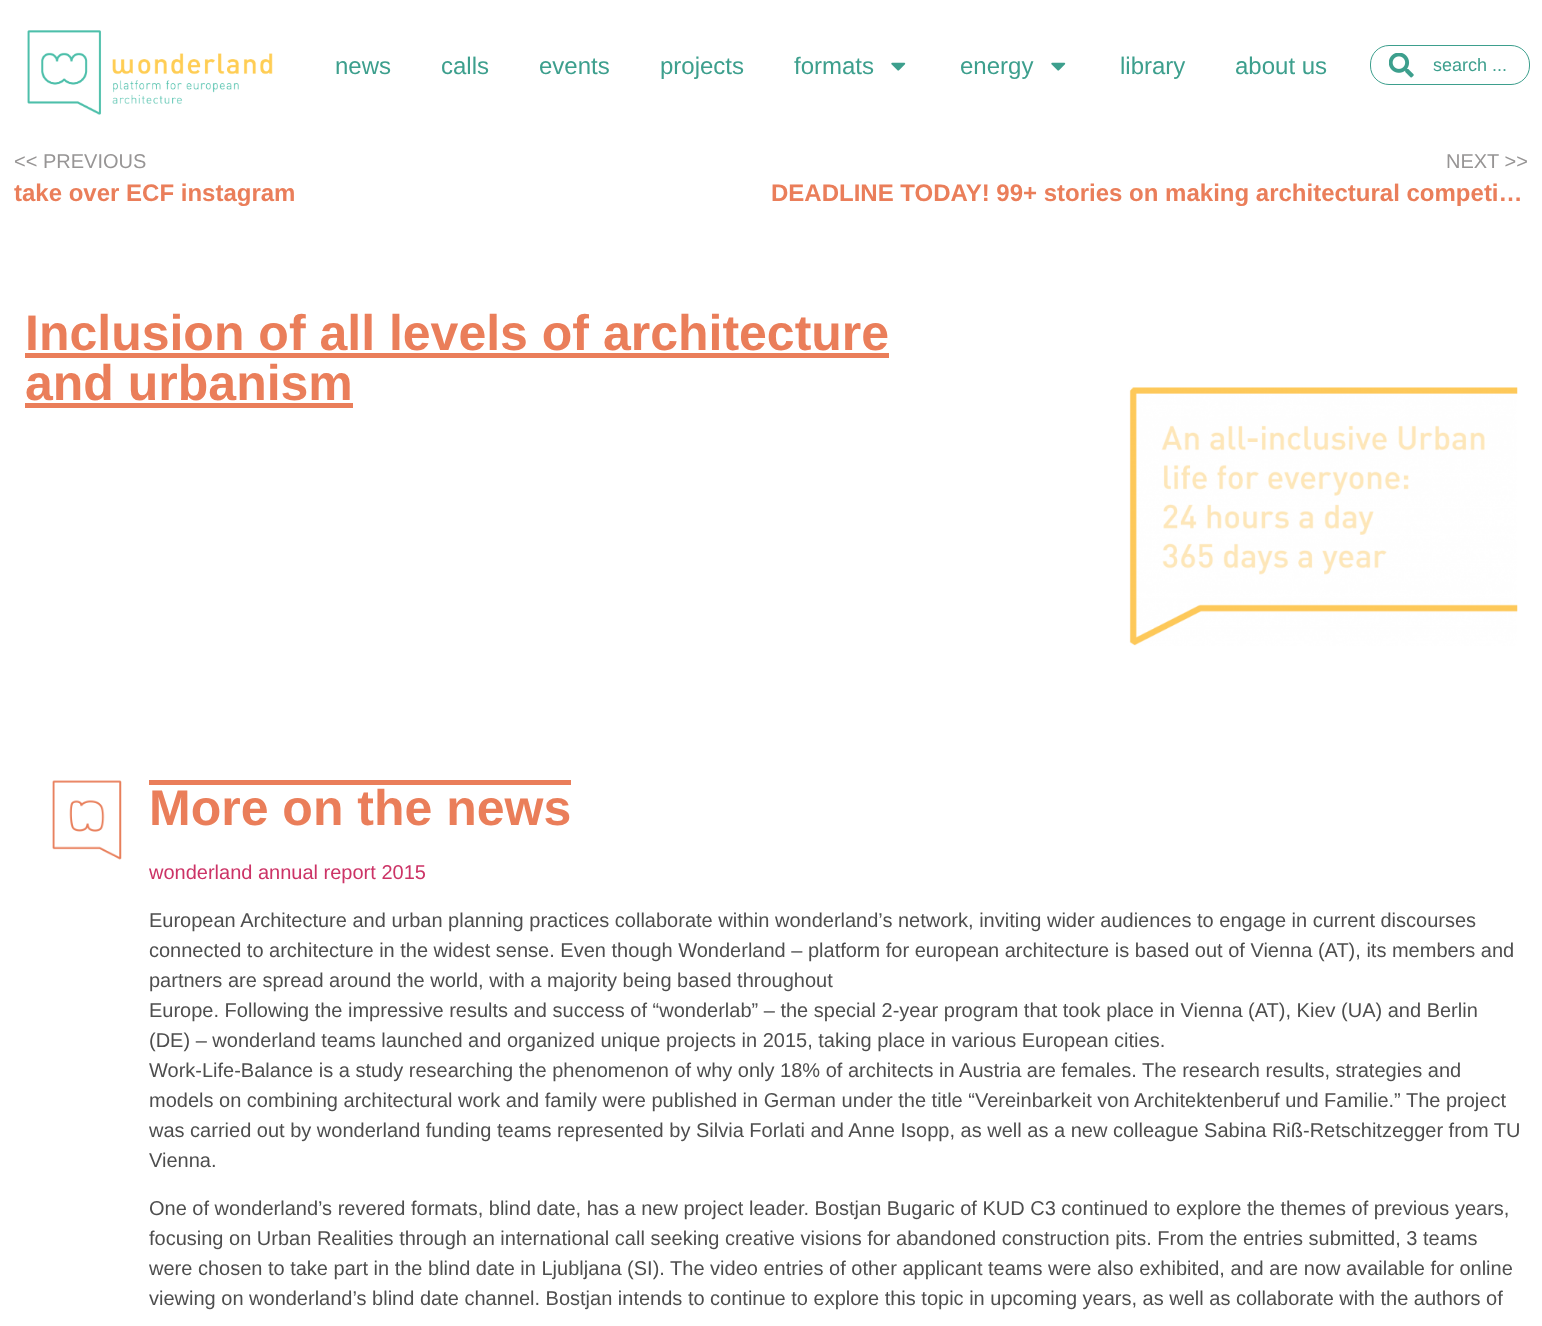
<?xml version="1.0" encoding="UTF-8"?>
<svg xmlns="http://www.w3.org/2000/svg" width="1542" height="1326">
    <rect width="100%" height="100%" fill="#FFFFFF"/>
    <image x="27" y="30" width="246" height="85" href="img_01.png"/>
    <text x="335" y="74" font-family="Liberation Sans" font-size="24" fill="#3D9F8D">news</text>
    <text x="441" y="74" font-family="Liberation Sans" font-size="24" fill="#3D9F8D">calls</text>
    <text x="539" y="74" font-family="Liberation Sans" font-size="24" fill="#3D9F8D">events</text>
    <text x="660" y="74" font-family="Liberation Sans" font-size="24" fill="#3D9F8D">projects</text>
    <text x="794" y="74" font-family="Liberation Sans" font-size="24" fill="#3D9F8D">formats</text>
    <image x="891" y="62" width="15" height="9" href="img_02.png"/>
    <text x="960" y="74" font-family="Liberation Sans" font-size="24" fill="#3D9F8D">energy</text>
    <image x="1051" y="62" width="15" height="9" href="img_02.png"/>
    <text x="1120" y="74" font-family="Liberation Sans" font-size="24" fill="#3D9F8D">library</text>
    <text x="1235" y="74" font-family="Liberation Sans" font-size="24" fill="#3D9F8D">about us</text>
    <rect x="1370.5" y="45.5" width="159" height="39" rx="18.5" fill="none" stroke="#3D9F8D"/>
    <image x="1389" y="53" width="25" height="25" href="img_03.png"/>
    <text x="1433" y="71" font-family="Liberation Sans" font-size="18" fill="#3D9F8D">search ...</text>
    <text x="14" y="168" font-family="Liberation Sans" font-size="20" fill="#979595">&lt;&lt; PREVIOUS</text>
    <text x="14" y="201" font-family="Liberation Sans" font-size="24" font-weight="700" fill="#EA7E5A">take over ECF instagram</text>
    <text x="1446" y="168" font-family="Liberation Sans" font-size="20" fill="#979595">NEXT &gt;&gt;</text>
    <text x="771" y="201" font-family="Liberation Sans" font-size="24" font-weight="700" fill="#EA7E5A">DEADLINE TODAY! 99+ stories on making architectural competi…</text>
    <text x="25" y="350" font-family="Liberation Sans" font-size="50" font-weight="700" fill="#EA7E5A">Inclusion of all levels of architecture</text>
    <rect x="25" y="353" width="864" height="5" fill="#EA7E5A"/>
    <text x="25" y="400" font-family="Liberation Sans" font-size="50" font-weight="700" fill="#EA7E5A">and urbanism</text>
    <rect x="25" y="403" width="328" height="5" fill="#EA7E5A"/>
    <image x="1129" y="387" width="389" height="259" href="img_04.png"/>
    <image x="52" y="780" width="70" height="80" href="img_05.png"/>
    <text x="149" y="825" font-family="Liberation Sans" font-size="50" font-weight="700" fill="#EA7E5A">More on the news</text>
    <rect x="149" y="780" width="422" height="5" fill="#EA7E5A"/>
    <text x="149" y="879" font-family="Liberation Sans" font-size="20" fill="#CC3366">wonderland annual report 2015</text>
    <text font-family="Liberation Sans" font-size="20" fill="#4E4E4E">
        <tspan x="149" y="927">European Architecture and urban planning practices collaborate within wonderland’s network, inviting wider audiences to engage in current discourses</tspan>
        <tspan x="149" y="957">connected to architecture in the widest sense. Even though Wonderland – platform for european architecture is based out of Vienna (AT), its members and</tspan>
        <tspan x="149" y="987">partners are spread around the world, with a majority being based throughout</tspan>
        <tspan x="149" y="1017">Europe. Following the impressive results and success of “wonderlab” – the special 2-year program that took place in Vienna (AT), Kiev (UA) and Berlin</tspan>
        <tspan x="149" y="1047">(DE) – wonderland teams launched and organized unique projects in 2015, taking place in various European cities.</tspan>
        <tspan x="149" y="1077">Work-Life-Balance is a study researching the phenomenon of why only 18% of architects in Austria are females. The research results, strategies and</tspan>
        <tspan x="149" y="1107">models on combining architectural work and family were published in German under the title “Vereinbarkeit von Architektenberuf und Familie.” The project</tspan>
        <tspan x="149" y="1137">was carried out by wonderland funding teams represented by Silvia Forlati and Anne Isopp, as well as a new colleague Sabina Riß-Retschitzegger from TU</tspan>
        <tspan x="149" y="1167">Vienna.</tspan>
    </text>
    <text font-family="Liberation Sans" font-size="20" fill="#4E4E4E">
        <tspan x="149" y="1215">One of wonderland’s revered formats, blind date, has a new project leader. Bostjan Bugaric of KUD C3 continued to explore the themes of previous years,</tspan>
        <tspan x="149" y="1245">focusing on Urban Realities through an international call seeking creative visions for abandoned construction pits. From the entries submitted, 3 teams</tspan>
        <tspan x="149" y="1275">were chosen to take part in the blind date in Ljubljana (SI). The video entries of other applicant teams were also exhibited, and are now available for online</tspan>
        <tspan x="149" y="1305">viewing on wonderland’s blind date channel. Bostjan intends to continue to explore this topic in upcoming years, as well as collaborate with the authors of</tspan>
    </text>
</svg>
